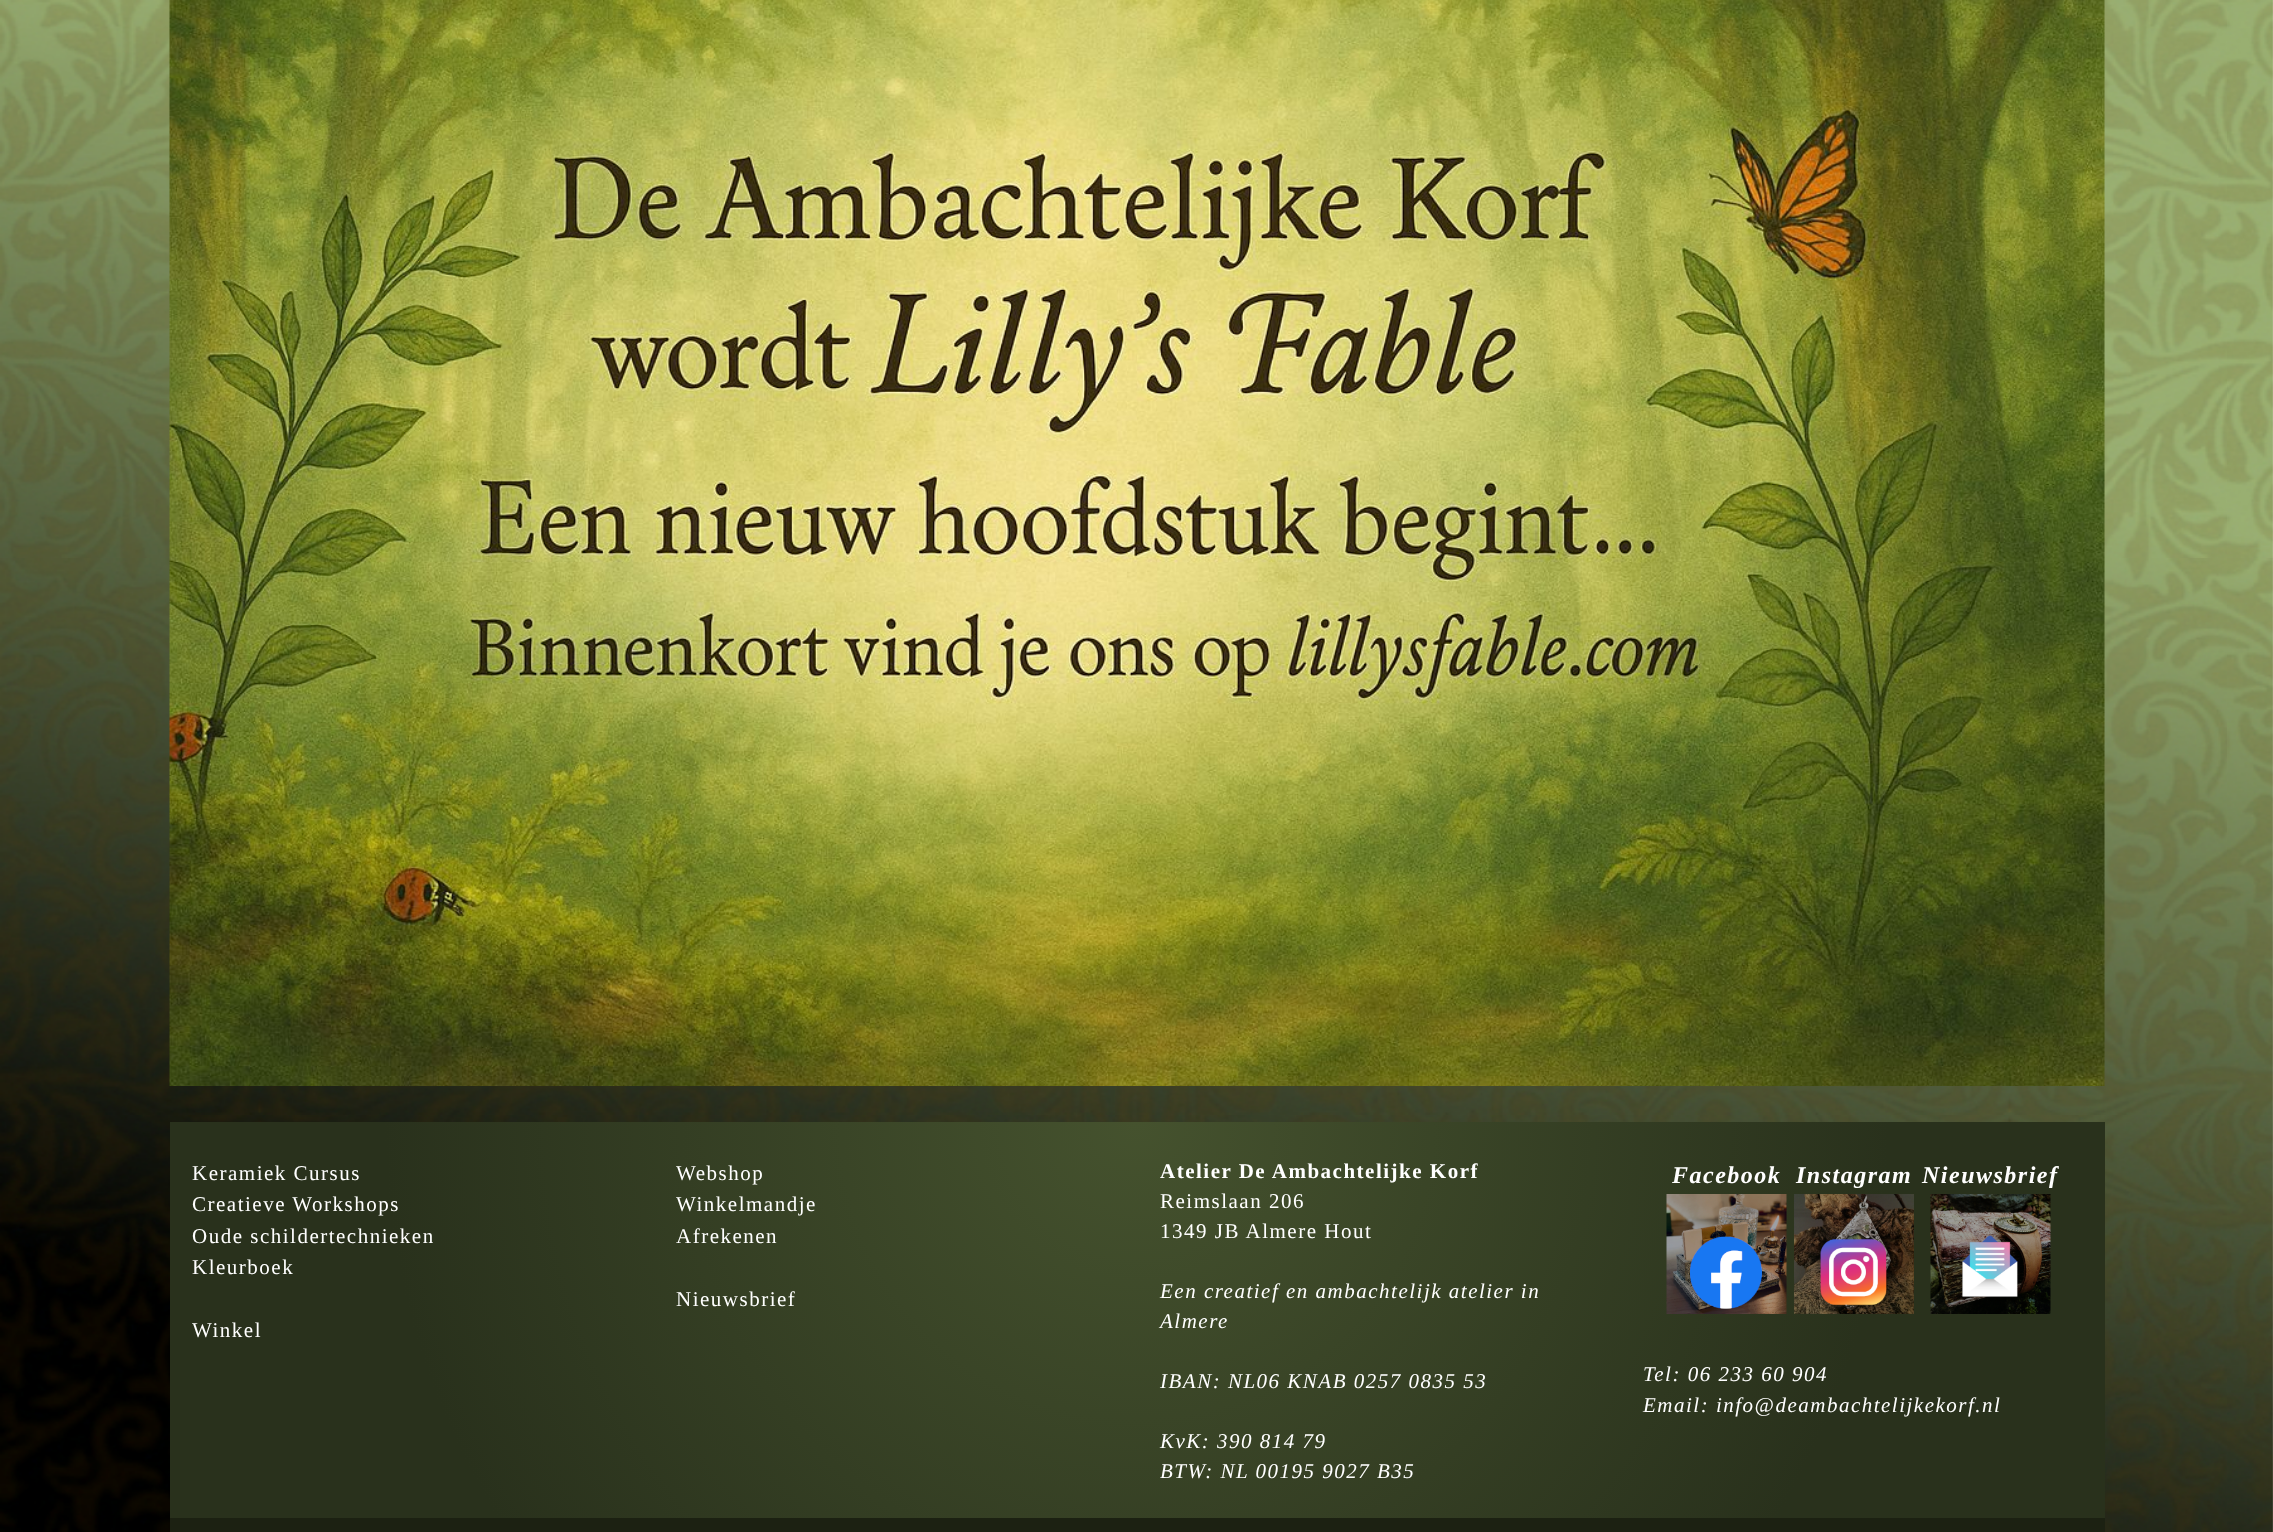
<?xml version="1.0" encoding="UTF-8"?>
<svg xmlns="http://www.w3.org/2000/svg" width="2273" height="1532">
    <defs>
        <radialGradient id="g1" gradientUnits="userSpaceOnUse" cx="1137" cy="1122" r="1045"><stop offset="0" stop-color="#45522E"/><stop offset="0.72" stop-color="#29311C"/></radialGradient>
    </defs>
    <rect width="100%" height="100%" fill="#FFFFFF"/>
    <image x="0" y="0" width="2273" height="1532" href="img_01.png"/>
    <image x="169" y="0" width="1936" height="1086" href="img_02.png"/>
    <rect x="170" y="1122" width="1935" height="396" fill="url(#g1)"/>
    <text font-family="Liberation Serif" font-size="21" letter-spacing="1.5" fill="#FFFFFF">
        <tspan x="192" y="1180">Keramiek Cursus</tspan>
        <tspan x="192" y="1211">Creatieve Workshops</tspan>
        <tspan x="192" y="1243">Oude schildertechnieken</tspan>
        <tspan x="192" y="1274">Kleurboek</tspan>
    </text>
    <text x="192" y="1337" font-family="Liberation Serif" font-size="21" letter-spacing="1.5" fill="#FFFFFF">Winkel</text>
    <text font-family="Liberation Serif" font-size="21" letter-spacing="1.5" fill="#FFFFFF">
        <tspan x="676" y="1180">Webshop</tspan>
        <tspan x="676" y="1211">Winkelmandje</tspan>
        <tspan x="676" y="1243">Afrekenen</tspan>
    </text>
    <text x="676" y="1306" font-family="Liberation Serif" font-size="21" letter-spacing="1.5" fill="#FFFFFF">Nieuwsbrief</text>
    <text x="1160" y="1178" font-family="Liberation Serif" font-size="21" font-weight="700" letter-spacing="1.5" fill="#FFFFFF">Atelier De Ambachtelijke Korf</text>
    <text font-family="Liberation Serif" font-size="21" letter-spacing="1.5" fill="#FFFFFF">
        <tspan x="1160" y="1208">Reimslaan 206</tspan>
        <tspan x="1160" y="1238">1349 JB Almere Hout</tspan>
    </text>
    <text font-family="Liberation Serif" font-size="21" font-style="italic" letter-spacing="1.5" fill="#FFFFFF">
        <tspan x="1160" y="1298">Een creatief en ambachtelijk atelier in</tspan>
        <tspan x="1160" y="1328">Almere</tspan>
    </text>
    <text x="1160" y="1388" font-family="Liberation Serif" font-size="21" font-style="italic" letter-spacing="1.5" fill="#FFFFFF">IBAN: NL06 KNAB 0257 0835 53</text>
    <text font-family="Liberation Serif" font-size="21" font-style="italic" letter-spacing="1.5" fill="#FFFFFF">
        <tspan x="1160" y="1448">KvK: 390 814 79</tspan>
        <tspan x="1160" y="1478">BTW: NL 00195 9027 B35</tspan>
    </text>
    <text x="1672" y="1183" font-family="Liberation Serif" font-size="24" font-weight="700" font-style="italic" letter-spacing="1.5" fill="#FFFFFF">Facebook</text>
    <image x="1666" y="1194" width="121" height="120" href="img_03.png"/>
    <text x="1796" y="1183" font-family="Liberation Serif" font-size="24" font-weight="700" font-style="italic" letter-spacing="1.5" fill="#FFFFFF">Instagram</text>
    <image x="1794" y="1194" width="120" height="120" href="img_04.png"/>
    <text x="1922" y="1183" font-family="Liberation Serif" font-size="24" font-weight="700" font-style="italic" letter-spacing="1.5" fill="#FFFFFF">Nieuwsbrief</text>
    <image x="1930" y="1194" width="121" height="120" href="img_05.png"/>
    <text font-family="Liberation Serif" font-size="21" font-style="italic" letter-spacing="1.5" fill="#FFFFFF">
        <tspan x="1643" y="1381">Tel: 06 233 60 904</tspan>
        <tspan x="1643" y="1412">Email: info@deambachtelijkekorf.nl</tspan>
    </text>
    <rect x="170" y="1518" width="1935" height="14" fill="#1C2112"/>
</svg>
